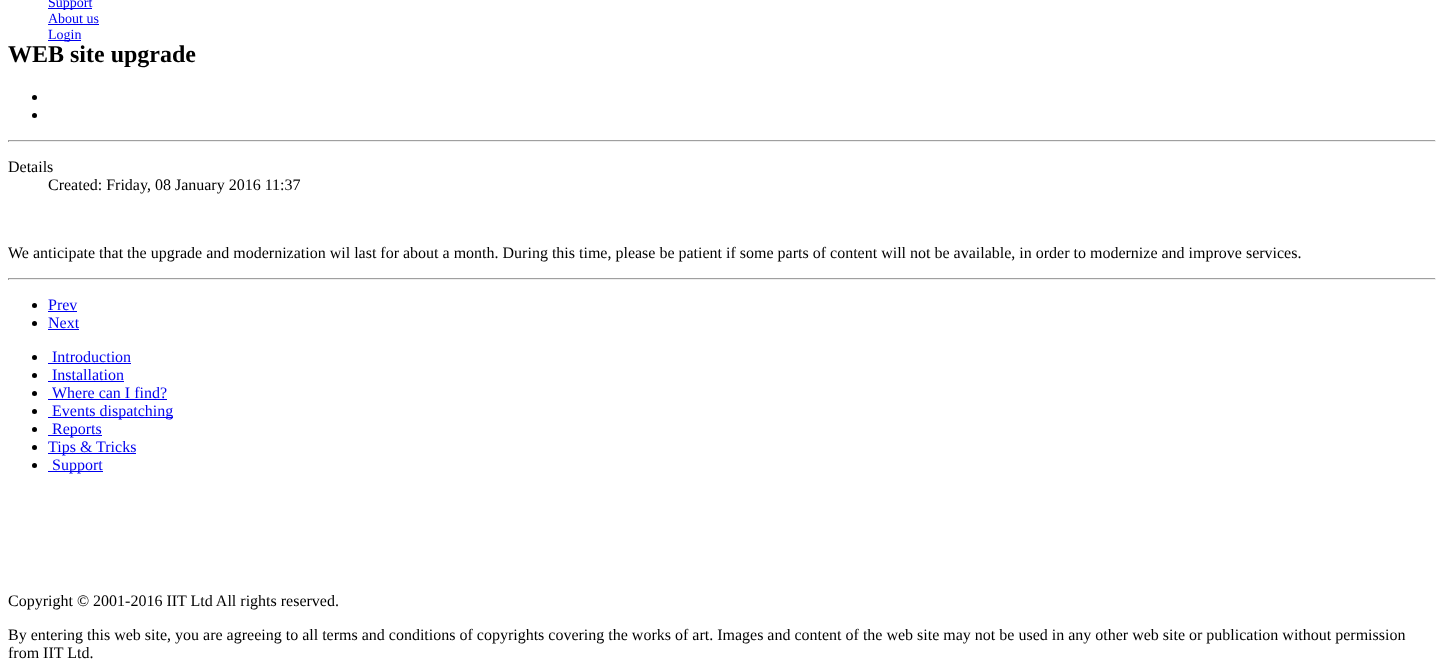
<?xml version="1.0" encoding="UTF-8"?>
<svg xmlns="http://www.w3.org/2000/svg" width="1444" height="659">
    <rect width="100%" height="100%" fill="#FFFFFF"/>
    <rect x="48" y="8" width="44" height="1" fill="#0000EE"/>
    <text font-family="Liberation Serif" font-size="14" fill="#0000EE">
        <tspan x="48" y="7">Support</tspan>
        <tspan x="48" y="23">About us</tspan>
    </text>
    <rect x="48" y="24" width="51" height="1" fill="#0000EE"/>
    <rect x="48" y="40" width="33" height="1" fill="#0000EE"/>
    <text x="48" y="39" font-family="Liberation Serif" font-size="14" fill="#0000EE">Login</text>
    <text x="8" y="62" font-family="Liberation Serif" font-size="24" font-weight="700" fill="#000000">WEB site upgrade</text>
    <circle cx="34.5" cy="97.5" r="2.5" fill="#000000"/>
    <circle cx="34.5" cy="115.5" r="2.5" fill="#000000"/>
    <rect x="8" y="140" width="1428" height="1" fill="#9F9F9F"/>
    <rect x="1435" y="140" width="1" height="2" fill="#EEEEEE"/>
    <rect x="8" y="141" width="1428" height="1" fill="#EEEEEE"/>
    <rect x="8" y="140" width="1" height="2" fill="#9F9F9F"/>
    <text x="8" y="172" font-family="Liberation Serif" font-size="16" fill="#000000">Details</text>
    <text x="48" y="190" font-family="Liberation Serif" font-size="16" fill="#000000">Created: Friday, 08 January 2016 11:37</text>
    <text x="8" y="258" font-family="Liberation Serif" font-size="16" fill="#000000">We anticipate that the upgrade and modernization wil last for about a month. During this time, please be patient if some parts of content will not be available, in order to modernize and improve services.</text>
    <rect x="8" y="278" width="1428" height="1" fill="#9F9F9F"/>
    <rect x="1435" y="278" width="1" height="2" fill="#EEEEEE"/>
    <rect x="8" y="279" width="1428" height="1" fill="#EEEEEE"/>
    <rect x="8" y="278" width="1" height="2" fill="#9F9F9F"/>
    <circle cx="34.5" cy="305.5" r="2.5" fill="#000000"/>
    <text x="48" y="310" font-family="Liberation Serif" font-size="16" fill="#0000EE">Prev</text>
    <rect x="48" y="311" width="29" height="1" fill="#0000EE"/>
    <circle cx="34.5" cy="323.5" r="2.5" fill="#000000"/>
    <text x="48" y="328" font-family="Liberation Serif" font-size="16" fill="#0000EE">Next</text>
    <rect x="48" y="329" width="31" height="1" fill="#0000EE"/>
    <circle cx="34.5" cy="357.5" r="2.5" fill="#000000"/>
    <text x="52" y="362" font-family="Liberation Serif" font-size="16" fill="#0000EE">Introduction</text>
    <rect x="48" y="363" width="83" height="1" fill="#0000EE"/>
    <circle cx="34.5" cy="375.5" r="2.5" fill="#000000"/>
    <text x="52" y="380" font-family="Liberation Serif" font-size="16" fill="#0000EE">Installation</text>
    <rect x="48" y="381" width="76" height="1" fill="#0000EE"/>
    <circle cx="34.5" cy="393.5" r="2.5" fill="#000000"/>
    <text x="52" y="398" font-family="Liberation Serif" font-size="16" fill="#0000EE">Where can I find?</text>
    <rect x="48" y="399" width="119" height="1" fill="#0000EE"/>
    <circle cx="34.5" cy="411.5" r="2.5" fill="#000000"/>
    <rect x="48" y="417" width="125" height="1" fill="#0000EE"/>
    <text x="52" y="416" font-family="Liberation Serif" font-size="16" fill="#0000EE">Events dispatching</text>
    <circle cx="34.5" cy="429.5" r="2.5" fill="#000000"/>
    <rect x="48" y="435" width="54" height="1" fill="#0000EE"/>
    <text x="52" y="434" font-family="Liberation Serif" font-size="16" fill="#0000EE">Reports</text>
    <circle cx="34.5" cy="447.5" r="2.5" fill="#000000"/>
    <rect x="48" y="453" width="88" height="1" fill="#0000EE"/>
    <text x="48" y="452" font-family="Liberation Serif" font-size="16" fill="#0000EE">Tips &amp; Tricks</text>
    <circle cx="34.5" cy="465.5" r="2.5" fill="#000000"/>
    <rect x="48" y="471" width="55" height="1" fill="#0000EE"/>
    <text x="52" y="470" font-family="Liberation Serif" font-size="16" fill="#0000EE">Support</text>
    <text x="8" y="606" font-family="Liberation Serif" font-size="16" fill="#000000">Copyright © 2001-2016 IIT Ltd All rights reserved.</text>
    <text font-family="Liberation Serif" font-size="16" fill="#000000">
        <tspan x="8" y="640">By entering this web site, you are agreeing to all terms and conditions of copyrights covering the works of art. Images and content of the web site may not be used in any other web site or publication without permission</tspan>
        <tspan x="8" y="658">from IIT Ltd.</tspan>
    </text>
</svg>
